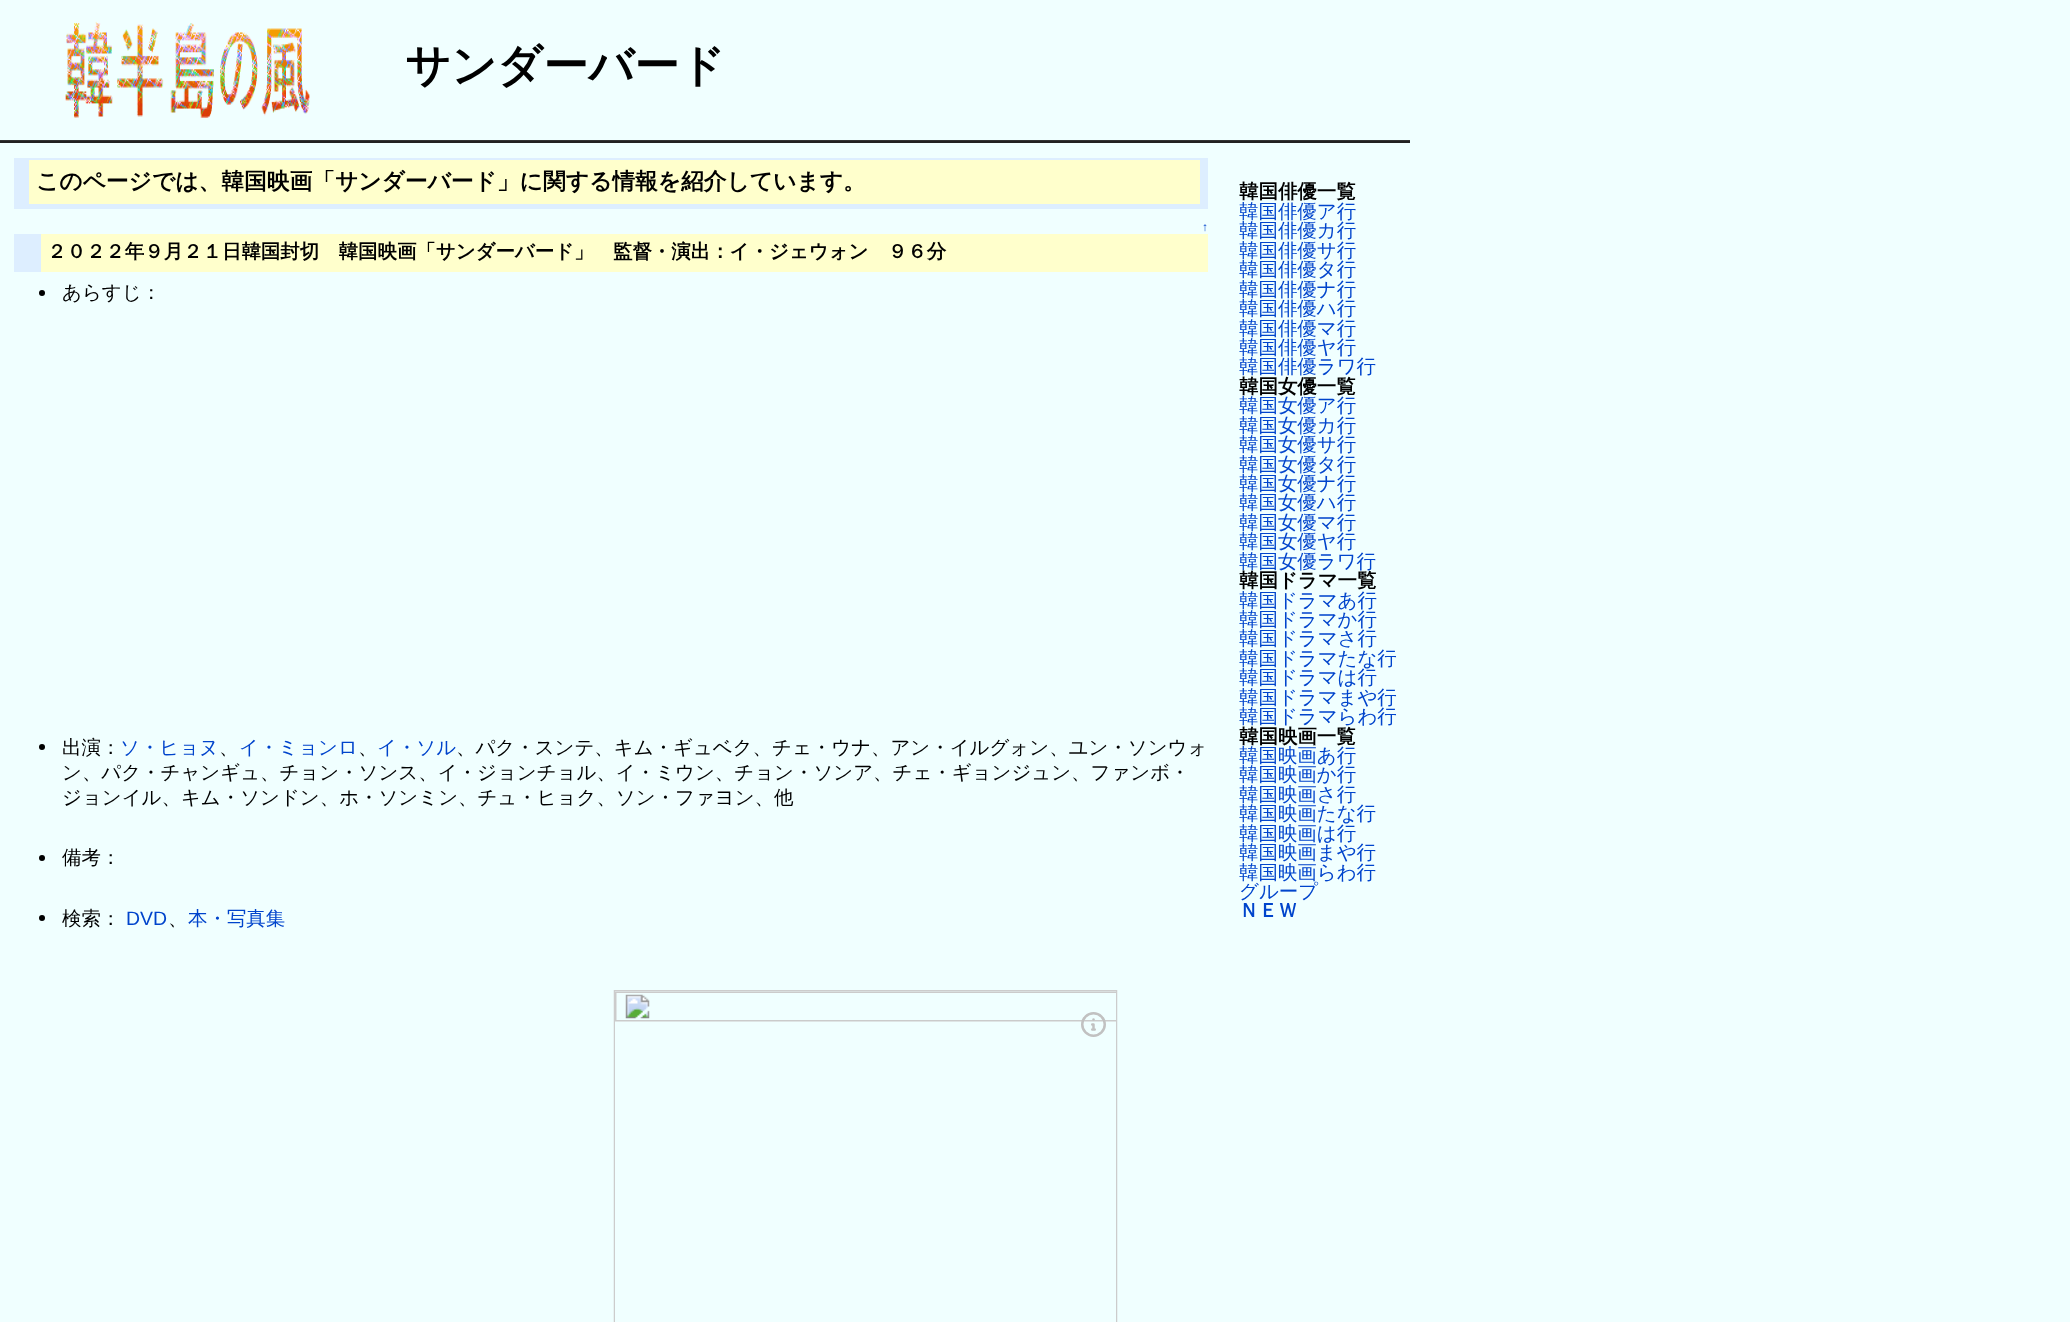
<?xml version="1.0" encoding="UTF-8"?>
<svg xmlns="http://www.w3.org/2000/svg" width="2070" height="1322">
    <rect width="100%" height="100%" fill="#F0FFFF"/>
    <image x="65" y="21" width="245" height="97" href="img_01.png"/>
    <text x="405" y="81" font-family="WenQuanYi Zen Hei" font-size="45" font-weight="700" fill="#000000">サンダーバード</text>
    <rect x="0" y="140" width="1410" height="1" fill="#333333"/>
    <rect x="0" y="141" width="1410" height="2" fill="#222222"/>
    <rect x="29" y="160" width="1171" height="44" fill="#FFFFCC"/>
    <rect x="29" y="158" width="1179" height="2" fill="#DDEEFF"/>
    <rect x="1200" y="158" width="8" height="51" fill="#DDEEFF"/>
    <rect x="29" y="204" width="1179" height="5" fill="#DDEEFF"/>
    <rect x="14" y="158" width="15" height="51" fill="#DDEEFF"/>
    <text x="36" y="189" font-family="WenQuanYi Zen Hei" font-size="22.75" font-weight="700" fill="#000000">このページでは、韓国映画「サンダーバード」に関する情報を紹介しています。</text>
    <text x="1202" y="231" font-family="Liberation Sans" font-size="12" fill="#0044CC">↑</text>
    <rect x="41" y="234" width="1167" height="38" fill="#FFFFCC"/>
    <rect x="14" y="234" width="27" height="38" fill="#DDEEFF"/>
    <text x="47" y="258" font-family="WenQuanYi Zen Hei" font-size="19.45" font-weight="700" fill="#000000">２０２２年９月２１日韓国封切　韓国映画「サンダーバード」　監督・演出：イ・ジェウォン　９６分</text>
    <circle cx="42" cy="293" r="3" fill="#000000"/>
    <text x="62" y="299" font-family="WenQuanYi Zen Hei" font-size="19.45" font-weight="500" fill="#000000">あらすじ：</text>
    <circle cx="42" cy="747" r="3" fill="#000000"/>
    <text x="62" y="754" font-family="WenQuanYi Zen Hei" font-size="19.45" font-weight="500" fill="#000000">出演：</text>
    <text x="120" y="754" font-family="WenQuanYi Zen Hei" font-size="19.45" font-weight="500" fill="#0044CC">ソ・ヒョヌ</text>
    <text x="239" y="754" font-family="WenQuanYi Zen Hei" font-size="19.45" font-weight="500" fill="#0044CC">イ・ミョンロ</text>
    <text x="377" y="754" font-family="WenQuanYi Zen Hei" font-size="19.45" font-weight="500" fill="#0044CC">イ・ソル</text>
    <text x="456" y="754" font-family="WenQuanYi Zen Hei" font-size="19.45" font-weight="500" fill="#000000">、パク・スンテ、キム・ギュベク、チェ・ウナ、アン・イルグォン、ユン・ソンウォ</text>
    <text x="219" y="754" font-family="WenQuanYi Zen Hei" font-size="19.45" font-weight="500" fill="#000000">、</text>
    <text x="358" y="754" font-family="WenQuanYi Zen Hei" font-size="19.45" font-weight="500" fill="#000000">、</text>
    <text font-family="WenQuanYi Zen Hei" font-size="19.45" font-weight="500" fill="#000000">
        <tspan x="62" y="779">ン、パク・チャンギュ、チョン・ソンス、イ・ジョンチョル、イ・ミウン、チョン・ソンア、チェ・ギョンジュン、ファンボ・</tspan>
        <tspan x="62" y="804">ジョンイル、キム・ソンドン、ホ・ソンミン、チュ・ヒョク、ソン・ファヨン、他</tspan>
    </text>
    <circle cx="42" cy="858" r="3" fill="#000000"/>
    <text x="62" y="864" font-family="WenQuanYi Zen Hei" font-size="19.45" font-weight="500" fill="#000000">備考：</text>
    <circle cx="42" cy="918" r="3" fill="#000000"/>
    <text x="62" y="925" font-family="WenQuanYi Zen Hei" font-size="19.45" font-weight="500" fill="#000000">検索：</text>
    <text x="126" y="925" font-family="Liberation Sans" font-size="19.45" fill="#0044CC">DVD</text>
    <text x="188" y="925" font-family="WenQuanYi Zen Hei" font-size="19.45" font-weight="500" fill="#0044CC">本・写真集</text>
    <text x="168" y="925" font-family="WenQuanYi Zen Hei" font-size="19.45" font-weight="500" fill="#000000">、</text>
    <image x="613" y="990" width="505" height="332" href="img_02.png"/>
    <text x="1239" y="198" font-family="WenQuanYi Zen Hei" font-size="19.45" font-weight="700" fill="#000000">韓国俳優一覧</text>
    <text font-family="WenQuanYi Zen Hei" font-size="19.45" font-weight="500" fill="#0044CC">
        <tspan x="1239" y="218">韓国俳優ア行</tspan>
        <tspan x="1239" y="237">韓国俳優カ行</tspan>
        <tspan x="1239" y="257">韓国俳優サ行</tspan>
        <tspan x="1239" y="276">韓国俳優タ行</tspan>
        <tspan x="1239" y="296">韓国俳優ナ行</tspan>
        <tspan x="1239" y="315">韓国俳優ハ行</tspan>
        <tspan x="1239" y="335">韓国俳優マ行</tspan>
        <tspan x="1239" y="354">韓国俳優ヤ行</tspan>
        <tspan x="1239" y="373">韓国俳優ラワ行</tspan>
    </text>
    <text x="1239" y="393" font-family="WenQuanYi Zen Hei" font-size="19.45" font-weight="700" fill="#000000">韓国女優一覧</text>
    <text font-family="WenQuanYi Zen Hei" font-size="19.45" font-weight="500" fill="#0044CC">
        <tspan x="1239" y="412">韓国女優ア行</tspan>
        <tspan x="1239" y="432">韓国女優カ行</tspan>
        <tspan x="1239" y="451">韓国女優サ行</tspan>
        <tspan x="1239" y="471">韓国女優タ行</tspan>
        <tspan x="1239" y="490">韓国女優ナ行</tspan>
        <tspan x="1239" y="509">韓国女優ハ行</tspan>
        <tspan x="1239" y="529">韓国女優マ行</tspan>
        <tspan x="1239" y="548">韓国女優ヤ行</tspan>
        <tspan x="1239" y="568">韓国女優ラワ行</tspan>
    </text>
    <text x="1239" y="587" font-family="WenQuanYi Zen Hei" font-size="19.45" font-weight="700" fill="#000000">韓国ドラマ一覧</text>
    <text font-family="WenQuanYi Zen Hei" font-size="19.45" font-weight="500" fill="#0044CC">
        <tspan x="1239" y="607">韓国ドラマあ行</tspan>
        <tspan x="1239" y="626">韓国ドラマか行</tspan>
        <tspan x="1239" y="645">韓国ドラマさ行</tspan>
        <tspan x="1239" y="665">韓国ドラマたな行</tspan>
        <tspan x="1239" y="684">韓国ドラマは行</tspan>
        <tspan x="1239" y="704">韓国ドラマまや行</tspan>
        <tspan x="1239" y="723">韓国ドラマらわ行</tspan>
    </text>
    <text x="1239" y="743" font-family="WenQuanYi Zen Hei" font-size="19.45" font-weight="700" fill="#000000">韓国映画一覧</text>
    <text font-family="WenQuanYi Zen Hei" font-size="19.45" font-weight="500" fill="#0044CC">
        <tspan x="1239" y="762">韓国映画あ行</tspan>
        <tspan x="1239" y="781">韓国映画か行</tspan>
        <tspan x="1239" y="801">韓国映画さ行</tspan>
        <tspan x="1239" y="820">韓国映画たな行</tspan>
        <tspan x="1239" y="840">韓国映画は行</tspan>
        <tspan x="1239" y="859">韓国映画まや行</tspan>
        <tspan x="1239" y="879">韓国映画らわ行</tspan>
        <tspan x="1239" y="898">グループ</tspan>
    </text>
    <text x="1239" y="917" font-family="WenQuanYi Zen Hei" font-size="19.45" font-weight="700" fill="#0044CC">ＮＥＷ</text>
</svg>
